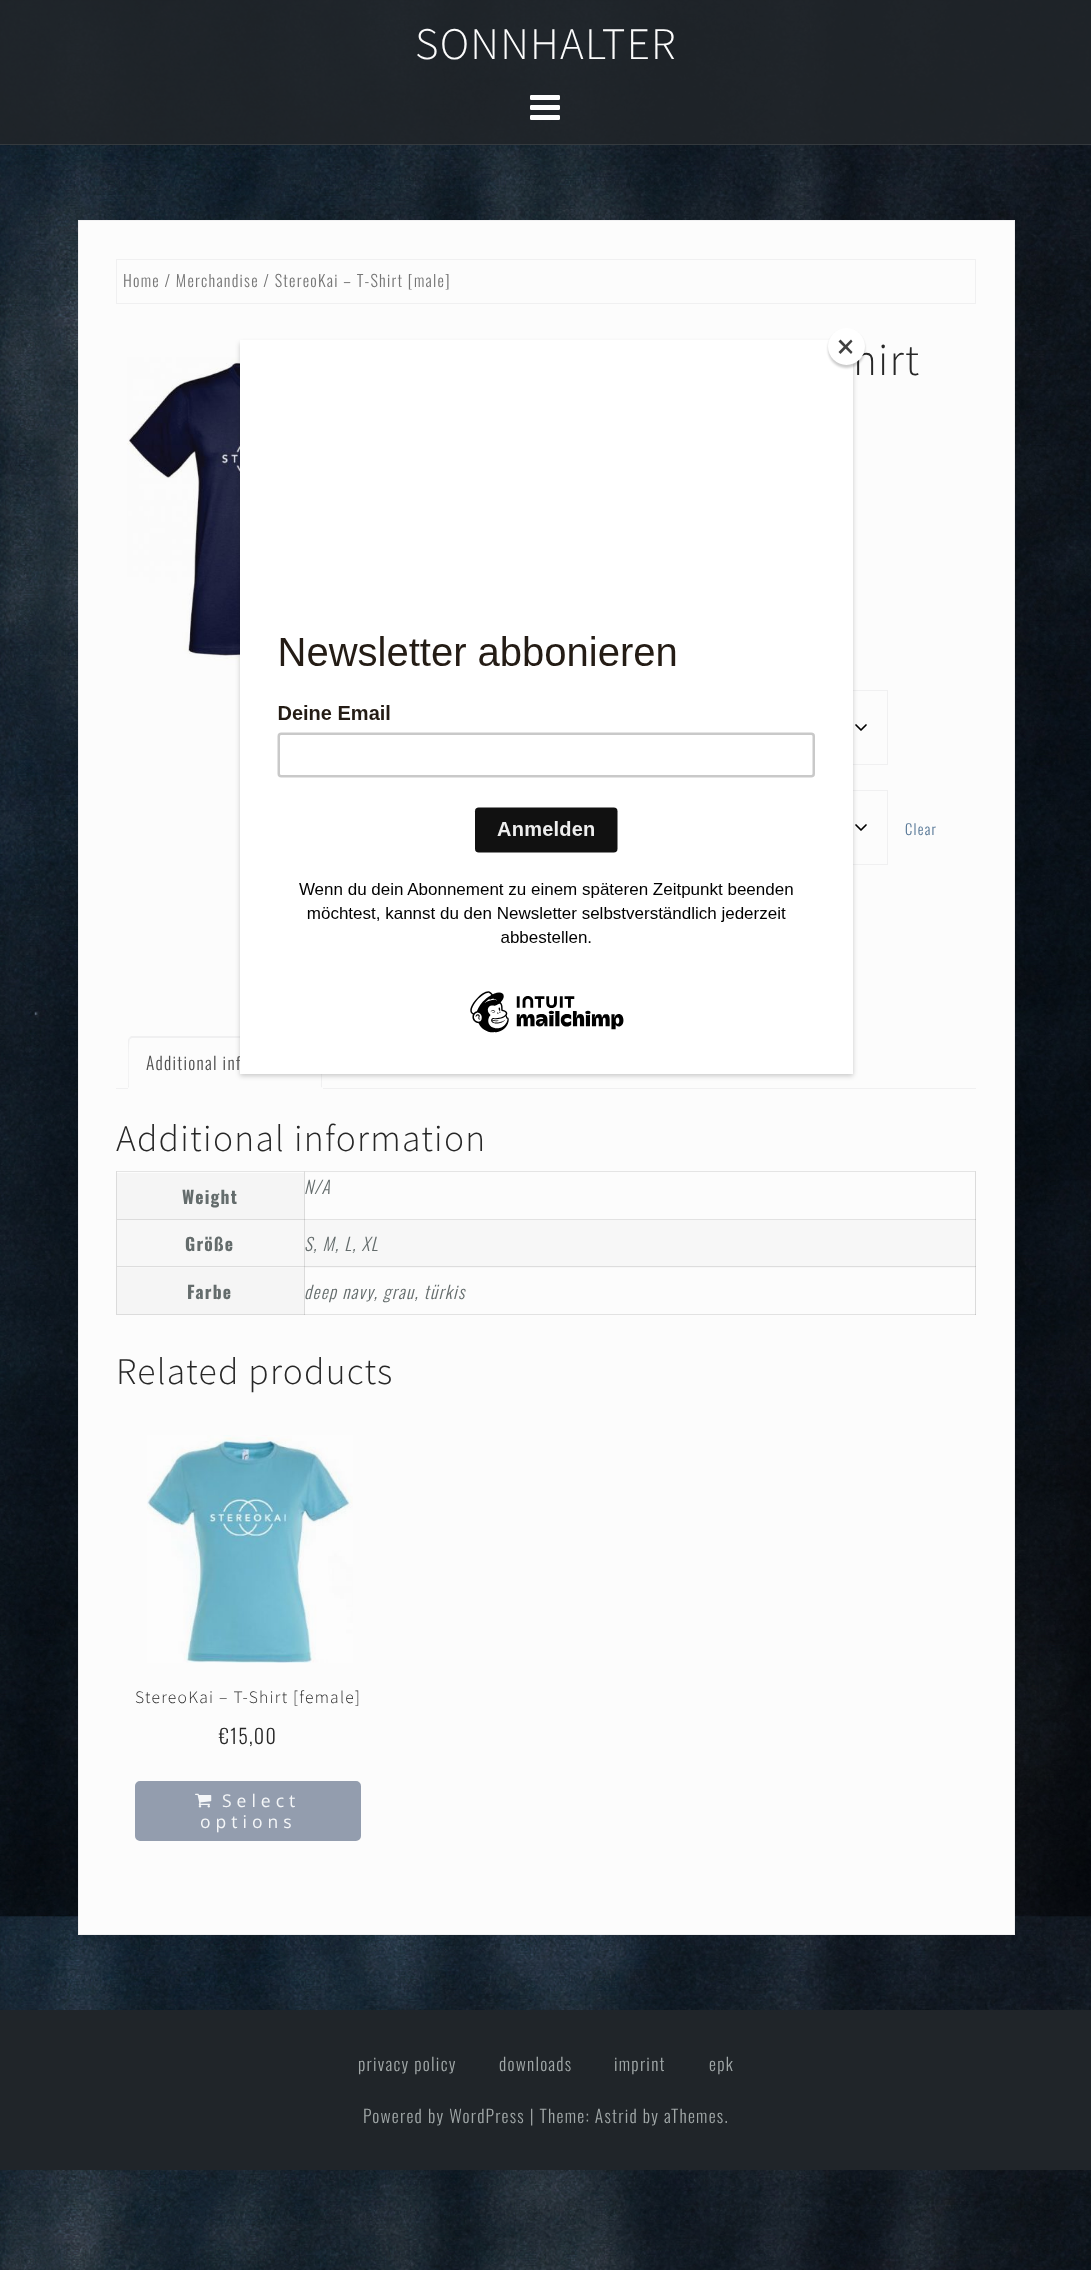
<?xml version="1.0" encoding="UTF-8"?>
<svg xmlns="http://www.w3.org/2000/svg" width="1091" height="2270">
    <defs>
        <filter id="blur1" x="-50%" y="-200%" width="200%" height="500%"><feGaussianBlur stdDeviation="2.5"/></filter>
        <filter id="blur2" x="-50%" y="-200%" width="200%" height="500%"><feGaussianBlur stdDeviation="1"/></filter>
    </defs>
    <rect width="100%" height="100%" fill="#FFFFFF"/>
    <image x="0" y="0" width="1091" height="2270" href="img_01.png"/>
    <rect x="0" y="0" width="1091" height="145" fill="#202529" fill-opacity="0.9"/>
    <rect x="0" y="144" width="1091" height="1" fill="#FCFCFC" fill-opacity="0.1"/>
    <text x="415" y="59" font-family="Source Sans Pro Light" font-size="45" font-weight="300" letter-spacing="1.25" fill="#FCFCFC">SONNHALTER</text>
    <image x="530" y="95" width="30" height="25" href="img_02.png"/>
    <rect x="79" y="221" width="935" height="1713" fill="#FCFCFC"/>
    <rect x="1014" y="220" width="1" height="1715" fill="#F0F0F1"/>
    <rect x="78" y="1934" width="937" height="1" fill="#F0F0F1"/>
    <rect x="78" y="220" width="1" height="1715" fill="#F0F0F1"/>
    <rect x="79" y="220" width="935" height="1" fill="#F0F0F1"/>
    <rect x="116.5" y="259.5" width="859" height="44" fill="none" stroke="#F0F0F1"/>
    <text x="123" y="287" font-family="Oswald" font-size="16.1" font-weight="300" letter-spacing="1.25" fill="#757575">Home / Merchandise / StereoKai – T-Shirt [male]</text>
    <image x="127" y="357" width="113" height="363" href="img_03.png"/>
    <text x="853" y="375" font-family="Source Sans Pro Light" font-size="45" font-weight="300" letter-spacing="1.25" fill="#272727">hirt</text>
    <path d="M 856 725 L 861 730 L 866 725" fill="none" stroke="#000000" stroke-width="1.7" stroke-linecap="round" stroke-linejoin="round"/>
    <rect x="661.5" y="690.5" width="226" height="74" fill="none" stroke="#F0F0F1"/>
    <path d="M 856 825 L 861 830 L 866 825" fill="none" stroke="#000000" stroke-width="1.7" stroke-linecap="round" stroke-linejoin="round"/>
    <rect x="661.5" y="790.5" width="226" height="74" fill="none" stroke="#F0F0F1"/>
    <text x="905" y="835" font-family="Oswald" font-size="14.5" font-weight="300" letter-spacing="1.25" fill="#547595">Clear</text>
    <rect x="116" y="1088" width="860" height="1" fill="#F0F0F1"/>
    <path d="M 133 1036 H 318 C 321 1036 323 1038 323 1041 V 1089 H 128 V 1041 C 128 1038 130 1036 133 1036 Z" fill="#FCFCFC"/>
    <path d="M 132 1038 L 130 1039 L 129 1038 L 131 1036 H 319 L 321 1038 L 320 1039 L 318 1038 Z" fill="#F0F0F1"/>
    <path d="M 321 1038 C 322 1039 322 1040 322 1041 V 1088 L 321 1087 C 321 1082 322 1040 320 1039 Z" fill="#F0F0F1"/>
    <path d="M 128 1089 L 129 1087 V 1088 H 321 V 1087 L 322 1088 V 1089 Z" fill="#FCFCFC"/>
    <path d="M 128 1088 V 1041 C 128 1040 128 1039 129 1038 L 130 1039 C 128 1040 129 1082 129 1087 Z" fill="#F0F0F1"/>
    <text x="146" y="1070" font-family="Oswald" font-size="17.5" font-weight="300" letter-spacing="1.25" fill="#505050">Additional inf</text>
    <text x="116" y="1151" font-family="Source Sans Pro Light" font-size="37.5" font-weight="300" letter-spacing="1.25" fill="#272727">Additional information</text>
    <rect x="116" y="1171" width="860" height="1" fill="#E4E4E4"/>
    <rect x="305" y="1220" width="670" height="48" fill="#F7F7F7"/>
    <rect x="975" y="1171" width="1" height="144" fill="#DBDBDB"/>
    <rect x="304" y="1314" width="672" height="1" fill="#000000" fill-opacity="0.1"/>
    <rect x="304" y="1266" width="1" height="49" fill="#DBDBDB"/>
    <rect x="304" y="1266" width="672" height="1" fill="#000000" fill-opacity="0.1"/>
    <rect x="304" y="1219" width="1" height="49" fill="#DBDBDB"/>
    <rect x="304" y="1219" width="672" height="1" fill="#000000" fill-opacity="0.1"/>
    <rect x="304" y="1171" width="1" height="49" fill="#DBDBDB"/>
    <text x="304" y="1194" font-family="Oswald" font-size="17.5" font-weight="300" font-style="italic" letter-spacing="1.25" fill="#646C6C">N/A</text>
    <rect x="117" y="1173" width="187" height="47" fill="#F5F5F5"/>
    <rect x="117" y="1220" width="187" height="48" fill="#F7F7F7"/>
    <rect x="117" y="1268" width="187" height="47" fill="#F5F5F5"/>
    <rect x="116" y="1314" width="189" height="1" fill="#000000" fill-opacity="0.1"/>
    <rect x="116" y="1266" width="1" height="49" fill="#DBDBDB"/>
    <rect x="116" y="1266" width="189" height="1" fill="#000000" fill-opacity="0.1"/>
    <rect x="116" y="1219" width="1" height="49" fill="#DBDBDB"/>
    <rect x="116" y="1219" width="189" height="1" fill="#000000" fill-opacity="0.1"/>
    <rect x="116" y="1171" width="1" height="49" fill="#DBDBDB"/>
    <text x="182" y="1204" font-family="Oswald" font-size="17.5" font-weight="700" letter-spacing="1.25" fill="#646C6C">Weight</text>
    <text x="185" y="1251" font-family="Oswald" font-size="17.5" font-weight="700" letter-spacing="1.25" fill="#646C6C">Größe</text>
    <text x="304" y="1251" font-family="Oswald" font-size="17.5" font-weight="300" font-style="italic" letter-spacing="1.25" fill="#646C6C">S, M, L, XL</text>
    <text x="187" y="1299" font-family="Oswald" font-size="17.5" font-weight="700" letter-spacing="1.25" fill="#646C6C">Farbe</text>
    <text x="304" y="1299" font-family="Oswald" font-size="17.5" font-weight="300" font-style="italic" letter-spacing="1.25" fill="#646C6C">deep navy, grau, türkis</text>
    <text x="116" y="1384" font-family="Source Sans Pro Light" font-size="37.5" font-weight="300" letter-spacing="1.25" fill="#272727">Related products</text>
    <image x="147" y="1435" width="206" height="228" href="img_04.png"/>
    <text x="135" y="1703" font-family="Source Sans Pro Light" font-size="17.5" font-weight="300" letter-spacing="1.25" fill="#272727">StereoKai – T-Shirt [female]</text>
    <text x="219" y="1744" font-family="Oswald" font-size="20" font-weight="300" letter-spacing="1.25" fill="#272727">€15,00</text>
    <rect x="136.5" y="1782.5" width="223" height="57" rx="3.5" fill="#939DAE" stroke="#939DAE" stroke-width="3"/>
    <image x="195" y="1793" width="17" height="15" href="img_05.png"/>
    <text x="222" y="1807" font-family="Open Sans" font-size="17.5" letter-spacing="5" fill="#F4F6F8">Select</text>
    <text x="200" y="1828" font-family="Open Sans" font-size="17.5" letter-spacing="5" fill="#F4F6F8">options</text>
    <rect x="0" y="2010" width="1091" height="160" fill="#202529"/>
    <text x="358" y="2071" font-family="Oswald" font-size="17.5" font-weight="300" letter-spacing="1.25" fill="#A1A8A8">privacy policy</text>
    <text x="499" y="2071" font-family="Oswald" font-size="17.5" font-weight="300" letter-spacing="1.25" fill="#A1A8A8">downloads</text>
    <text x="614" y="2071" font-family="Oswald" font-size="17.5" font-weight="300" letter-spacing="1.25" fill="#A1A8A8">imprint</text>
    <text x="709" y="2071" font-family="Oswald" font-size="17.5" font-weight="300" letter-spacing="1.25" fill="#A1A8A8">epk</text>
    <text x="363" y="2123" font-family="Oswald" font-size="17.5" font-weight="300" letter-spacing="1.25" fill="#A1A8A8">Powered by WordPress | Theme: Astrid by aThemes.</text>
    <rect x="240" y="343" width="613" height="733" fill="#000000" fill-opacity="0.2" filter="url(#blur1)"/>
    <image x="240" y="340" width="613" height="734" href="img_06.png"/>
    <rect x="828" y="330" width="37" height="38" rx="18.5" fill="#000000" fill-opacity="0.2" filter="url(#blur2)"/>
    <circle cx="846.5" cy="346.5" r="18.5" fill="#FFFFFF"/>
    <path d="M 851 339.5 L 852.5 341.5 L 840.5 354 L 838.5 352 Z" fill="#414141"/>
    <path d="M 838.5 341.5 L 840.5 339.5 L 852.5 352 L 851 354 Z" fill="#414141"/>
</svg>
